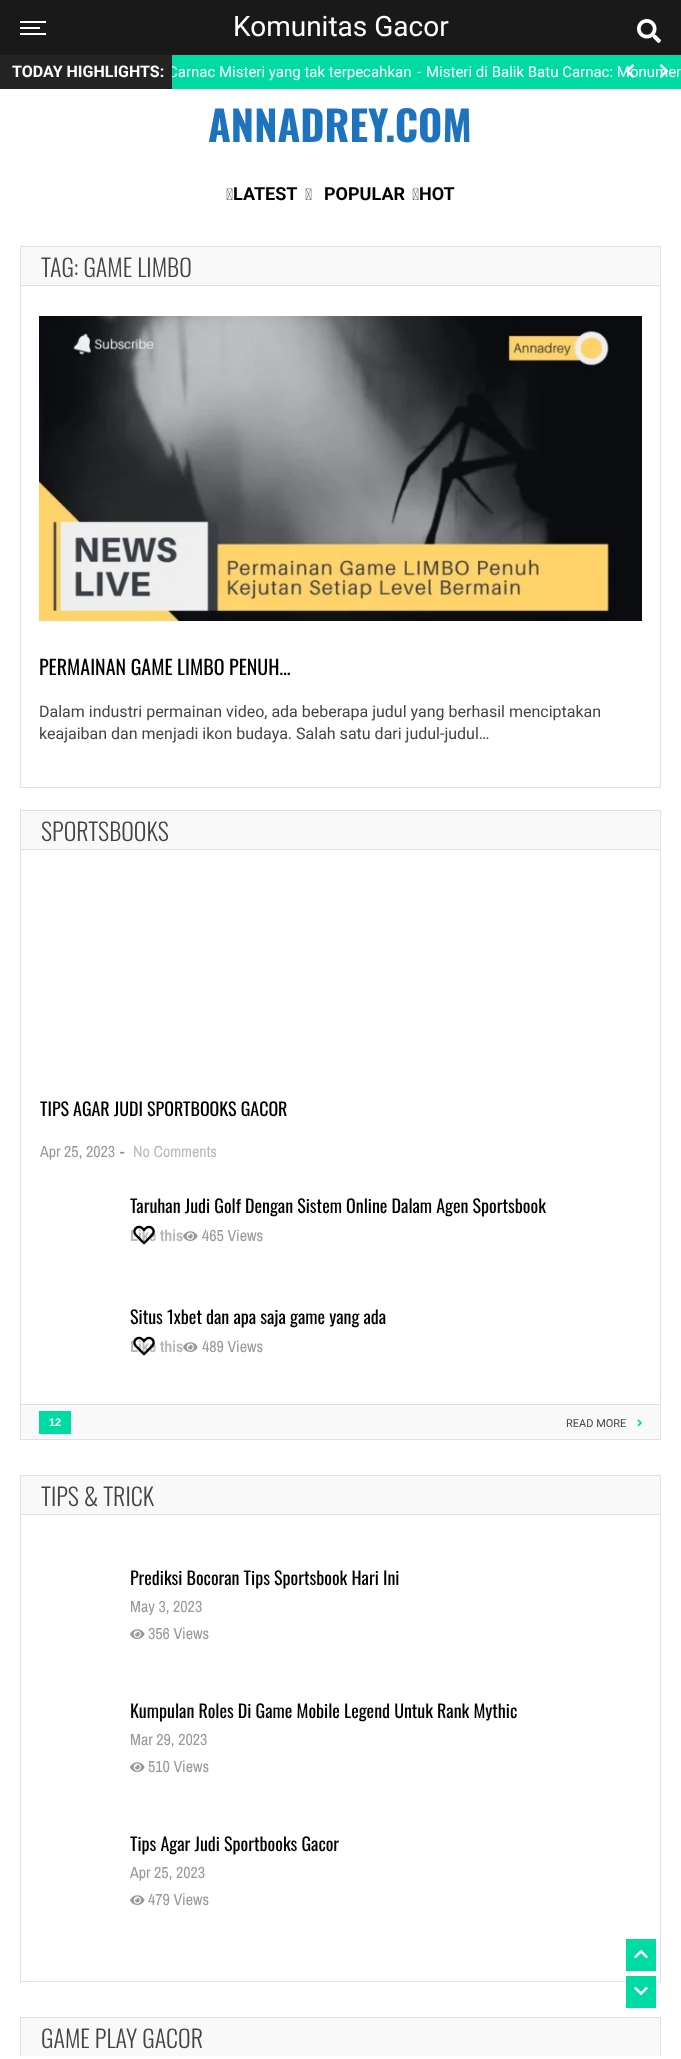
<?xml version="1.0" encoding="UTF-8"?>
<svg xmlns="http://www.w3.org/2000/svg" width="681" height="2059">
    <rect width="100%" height="100%" fill="#FFFFFF"/>
    <rect x="0" y="0" width="681" height="55" fill="#191919"/>
    <rect x="20" y="21" width="26" height="2" fill="#FFFFFF"/>
    <rect x="20" y="27" width="20" height="2" fill="#FFFFFF"/>
    <rect x="20" y="33" width="26" height="2" fill="#FFFFFF"/>
    <text x="233" y="36" font-family="Roboto" font-size="28" fill="#FFFFFF">Komunitas Gacor</text>
    <image x="637" y="19" width="24" height="24" href="img_01.png"/>
    <rect x="172" y="55" width="509" height="34" fill="#00DBA3"/>
    <text x="168" y="77" font-family="Roboto" font-size="15" fill="#FFFFFF">Carnac Misteri yang tak terpecahkan</text>
    <rect x="0" y="55" width="172" height="34" fill="#242424"/>
    <text x="12" y="77" font-family="Roboto" font-size="16" font-weight="700" fill="#FFFFFF">TODAY HIGHLIGHTS:</text>
    <text x="426" y="77" font-family="Roboto" font-size="15" fill="#FFFFFF">Misteri di Balik Batu Carnac: Monumen</text>
    <image x="626" y="64" width="9" height="14" href="img_02.png"/>
    <image x="659" y="64" width="10" height="14" href="img_03.png"/>
    <text x="417" y="77" font-family="Roboto" font-size="15" fill="#FFFFFF">-</text>
    <text x="208" y="142" font-family="Oswald" font-size="41.5" font-weight="700" fill="#1E73BE">ANNADREY.COM</text>
    <image x="226" y="188" width="7" height="12" href="img_04.png"/>
    <text x="233" y="200" font-family="Roboto" font-size="18" font-weight="700" fill="#000000">LATEST</text>
    <image x="305" y="188" width="7" height="12" href="img_04.png"/>
    <text x="324" y="200" font-family="Roboto" font-size="18" font-weight="700" fill="#000000">POPULAR</text>
    <image x="412" y="188" width="7" height="12" href="img_04.png"/>
    <text x="419" y="200" font-family="Roboto" font-size="18" font-weight="700" fill="#000000">HOT</text>
    <rect x="20.5" y="246.5" width="640" height="541" fill="none" stroke="#DDE1EF"/>
    <rect x="21" y="247" width="639" height="38" fill="#F9F9F9"/>
    <rect x="21" y="285" width="639" height="1" fill="#DDE1EF"/>
    <text x="41" y="277" font-family="Oswald" font-size="24" font-weight="300" fill="#444444">TAG: GAME LIMBO</text>
    <image x="39" y="316" width="603" height="305" href="img_05.png"/>
    <text x="39" y="675" font-family="Oswald" font-size="20" fill="#000000">PERMAINAN GAME LIMBO PENUH…</text>
    <text font-family="Roboto" font-size="16" fill="#444444">
        <tspan x="39" y="717">Dalam industri permainan video, ada beberapa judul yang berhasil menciptakan</tspan>
        <tspan x="39" y="739">keajaiban dan menjadi ikon budaya. Salah satu dari judul-judul…</tspan>
    </text>
    <rect x="20.5" y="810.5" width="640" height="629" fill="none" stroke="#DDE1EF"/>
    <rect x="21" y="811" width="639" height="38" fill="#F9F9F9"/>
    <rect x="21" y="849" width="639" height="1" fill="#DDE1EF"/>
    <text x="41" y="841" font-family="Oswald" font-size="24" font-weight="300" fill="#444444">SPORTSBOOKS</text>
    <text x="40" y="1116" font-family="Oswald" font-size="18" fill="#000000">TIPS AGAR JUDI SPORTBOOKS GACOR</text>
    <text x="40" y="1157" font-family="Archivo Narrow" font-size="16" fill="#999999">Apr 25, 2023</text>
    <text x="120" y="1157" font-family="Archivo Narrow" font-size="16" fill="#8B8B8B">-</text>
    <text x="133" y="1157" font-family="Archivo Narrow" font-size="16" fill="#B9B9B9">No Comments</text>
    <text x="130" y="1213" font-family="Oswald" font-size="18" fill="#000000">Taruhan Judi Golf Dengan Sistem Online Dalam Agen Sportsbook</text>
    <text x="130" y="1241" font-family="Archivo Narrow" font-size="16" font-weight="700" fill="#B9B9B9">Like this</text>
    <image x="133" y="1225" width="22" height="20" href="img_06.png"/>
    <image x="183" y="1231" width="15" height="10" href="img_07.png"/>
    <text x="202" y="1241" font-family="Archivo Narrow" font-size="16" fill="#999999">465 Views</text>
    <text x="130" y="1324" font-family="Oswald" font-size="18" fill="#000000">Situs 1xbet dan apa saja game yang ada</text>
    <text x="130" y="1352" font-family="Archivo Narrow" font-size="16" font-weight="700" fill="#B9B9B9">Like this</text>
    <image x="133" y="1336" width="22" height="20" href="img_06.png"/>
    <image x="183" y="1342" width="15" height="10" href="img_07.png"/>
    <text x="202" y="1352" font-family="Archivo Narrow" font-size="16" fill="#999999">489 Views</text>
    <rect x="21" y="1405" width="639" height="34" fill="#F9F9F9"/>
    <rect x="21" y="1404" width="639" height="1" fill="#DDE1EF"/>
    <rect x="39" y="1411" width="32" height="23" fill="#00DBA3"/>
    <text x="49" y="1426" font-family="Liberation Sans" font-size="11" font-weight="700" fill="#FFFFFF">12</text>
    <text x="566" y="1427" font-family="Roboto" font-size="11" fill="#444444">READ MORE</text>
    <image x="637" y="1419" width="5" height="8" href="img_08.png"/>
    <rect x="20.5" y="1475.5" width="640" height="506" fill="none" stroke="#DDE1EF"/>
    <rect x="21" y="1476" width="639" height="38" fill="#F9F9F9"/>
    <rect x="21" y="1514" width="639" height="1" fill="#DDE1EF"/>
    <text x="41" y="1506" font-family="Oswald" font-size="24" font-weight="300" fill="#444444">TIPS &amp; TRICK</text>
    <text x="130" y="1585" font-family="Oswald" font-size="18" fill="#000000">Prediksi Bocoran Tips Sportsbook Hari Ini</text>
    <text x="130" y="1612" font-family="Archivo Narrow" font-size="16" fill="#999999">May 3, 2023</text>
    <image x="130" y="1629" width="15" height="10" href="img_07.png"/>
    <text x="148" y="1639" font-family="Archivo Narrow" font-size="16" fill="#999999">356 Views</text>
    <text x="130" y="1718" font-family="Oswald" font-size="18" fill="#000000">Kumpulan Roles Di Game Mobile Legend Untuk Rank Mythic</text>
    <text x="130" y="1745" font-family="Archivo Narrow" font-size="16" fill="#999999">Mar 29, 2023</text>
    <image x="130" y="1762" width="15" height="10" href="img_07.png"/>
    <text x="148" y="1772" font-family="Archivo Narrow" font-size="16" fill="#999999">510 Views</text>
    <text x="130" y="1851" font-family="Oswald" font-size="18" fill="#000000">Tips Agar Judi Sportbooks Gacor</text>
    <text x="130" y="1878" font-family="Archivo Narrow" font-size="16" fill="#999999">Apr 25, 2023</text>
    <image x="130" y="1895" width="15" height="10" href="img_07.png"/>
    <text x="148" y="1905" font-family="Archivo Narrow" font-size="16" fill="#999999">479 Views</text>
    <rect x="21" y="2018" width="639" height="38" fill="#F9F9F9"/>
    <rect x="20" y="2017" width="641" height="1" fill="#DDE1EF"/>
    <rect x="660" y="2017" width="1" height="39" fill="#DDE1EF"/>
    <rect x="20" y="2017" width="1" height="39" fill="#DDE1EF"/>
    <text x="41" y="2048" font-family="Oswald" font-size="24" font-weight="300" fill="#444444">GAME PLAY GACOR</text>
    <rect x="626" y="1939" width="30" height="32" fill="#00DBA3"/>
    <image x="634" y="1949" width="14" height="10" href="img_09.png"/>
    <rect x="626" y="1976" width="30" height="32" fill="#00DBA3"/>
    <image x="634" y="1986" width="14" height="10" href="img_10.png"/>
</svg>
